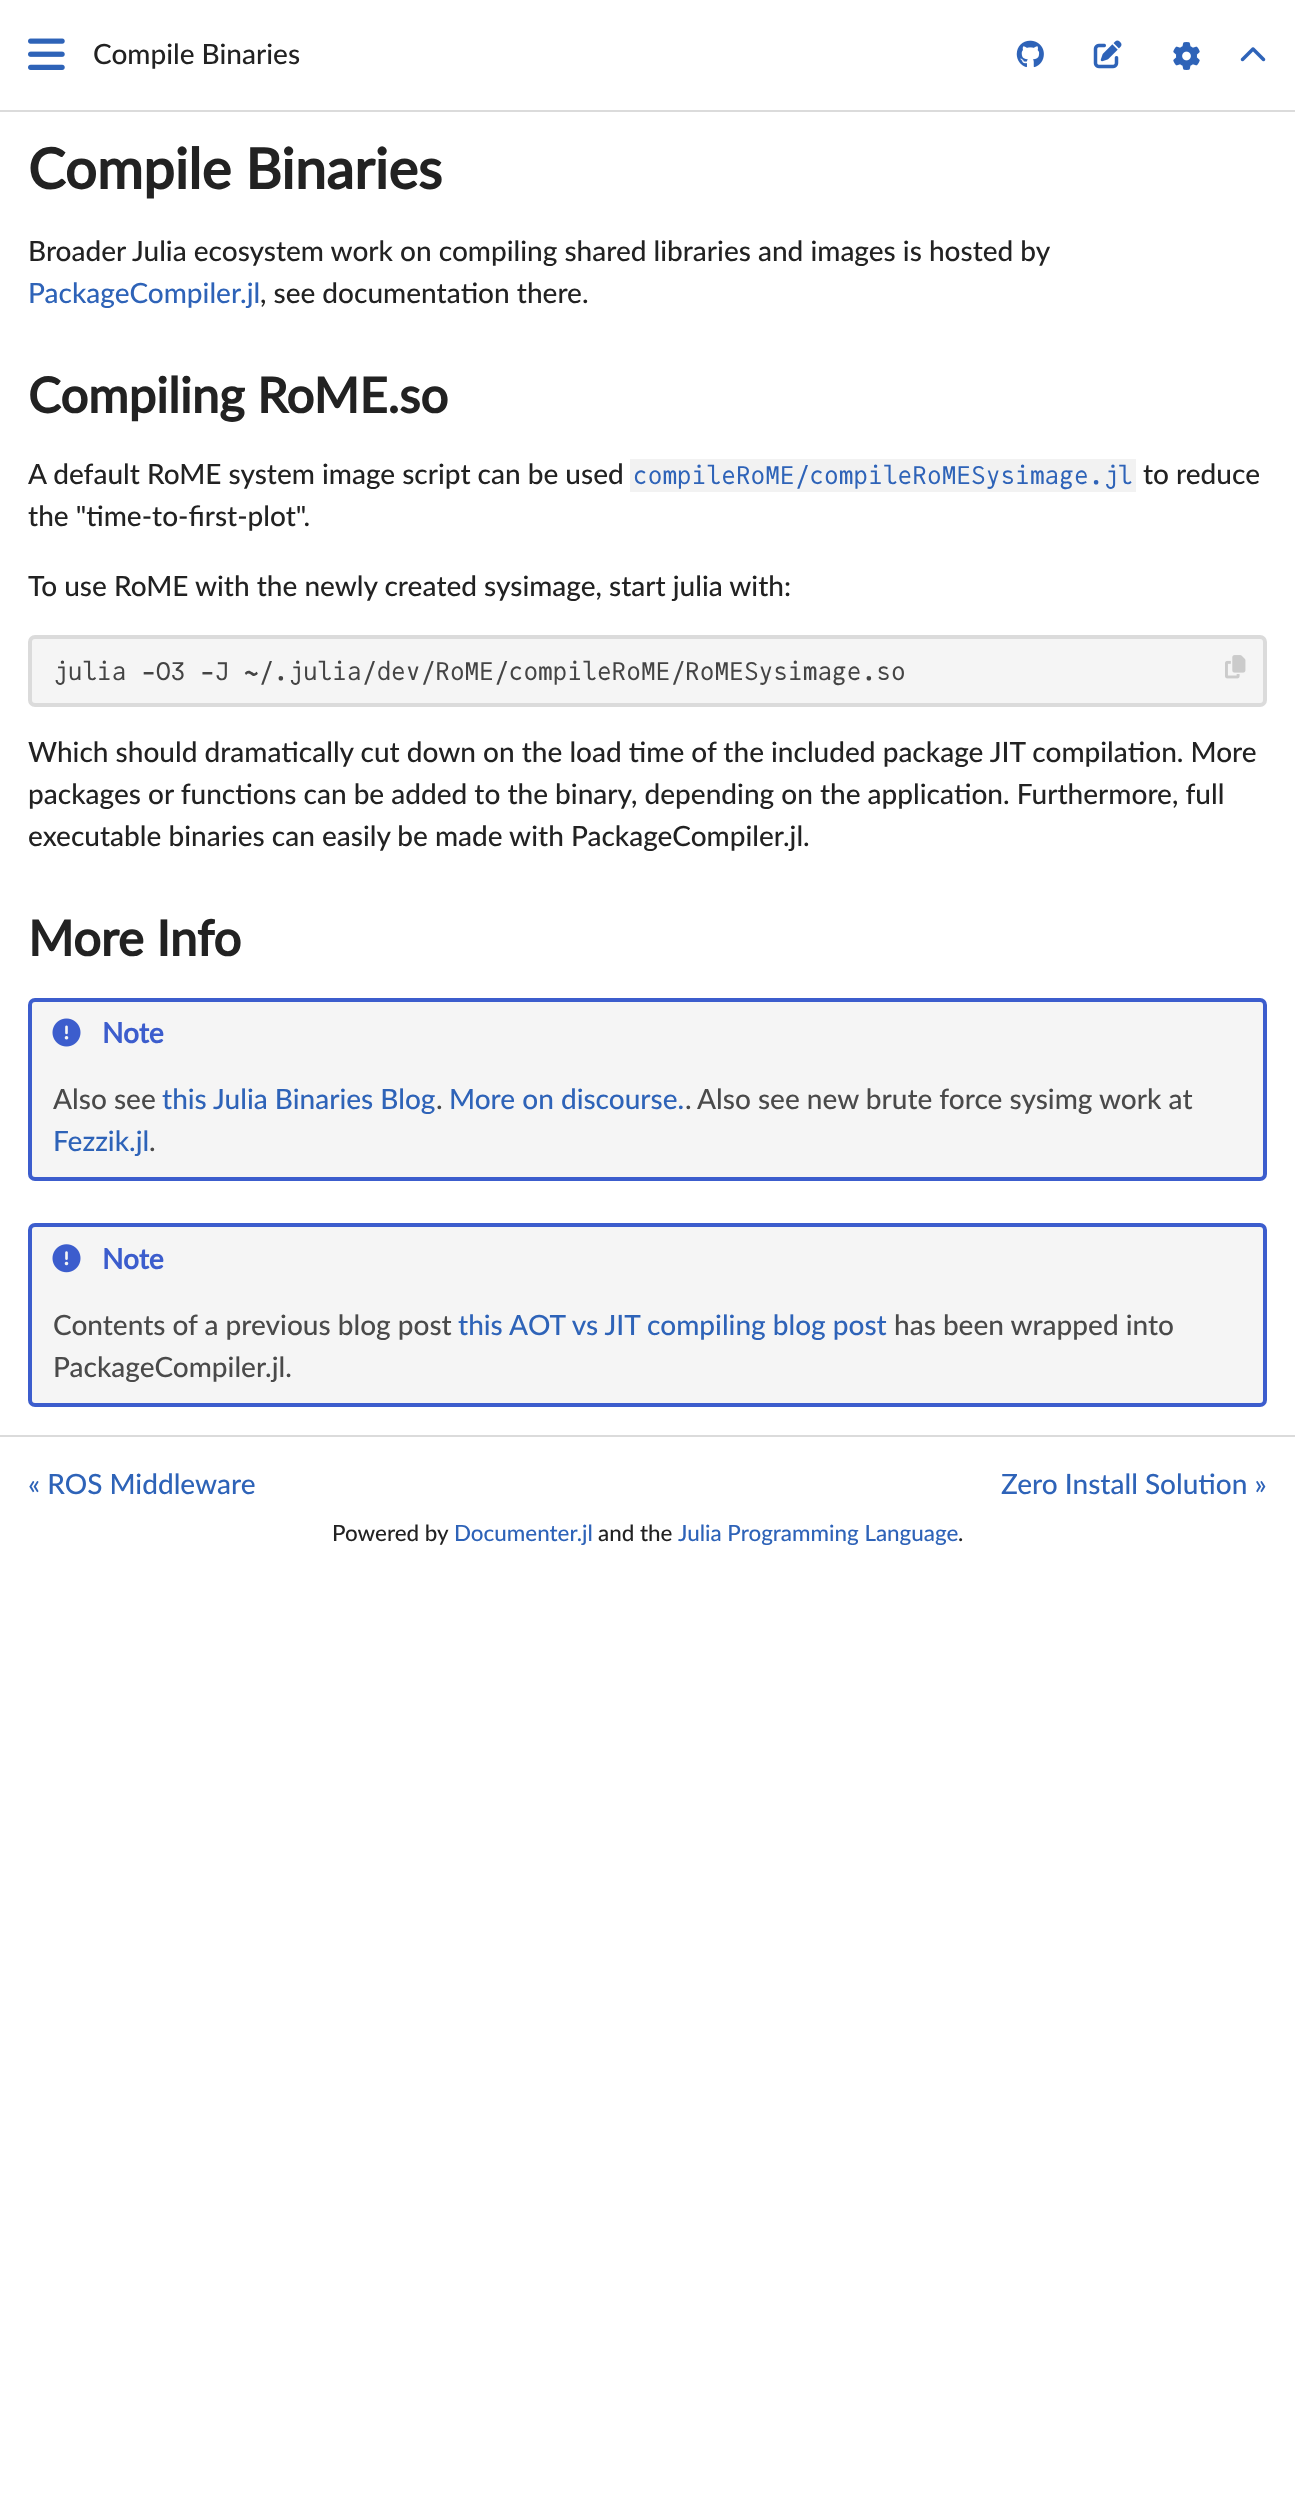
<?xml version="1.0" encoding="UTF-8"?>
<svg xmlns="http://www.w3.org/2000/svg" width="1295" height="2500">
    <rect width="100%" height="100%" fill="#FFFFFF"/>
    <rect x="0" y="110" width="1295" height="2" fill="#DBDBDB"/>
    <image x="28" y="38" width="37" height="32" href="img_01.png"/>
    <text x="93" y="64" font-family="Lato" font-size="28" font-weight="500" fill="#222222">Compile Binaries</text>
    <image x="1016" y="40" width="28" height="28" href="img_02.png"/>
    <image x="1093" y="40" width="29" height="29" href="img_03.png"/>
    <image x="1173" y="42" width="27" height="28" href="img_04.png"/>
    <image x="1240" y="47" width="26" height="15" href="img_05.png"/>
    <text x="28" y="189" font-family="Lato" font-size="56" font-weight="700" fill="#222222">Compile Binaries</text>
    <text x="28" y="261" font-family="Lato" font-size="28" font-weight="500" fill="#222222">Broader Julia ecosystem work on compiling shared libraries and images is hosted by</text>
    <text x="28" y="303" font-family="Lato" font-size="28" font-weight="500" fill="#2E63B8">PackageCompiler.jl</text>
    <text x="260" y="303" font-family="Lato" font-size="28" font-weight="500" fill="#222222">, see documentation there.</text>
    <text x="28" y="413" font-family="Lato" font-size="49" font-weight="700" fill="#222222">Compiling RoME.so</text>
    <text x="28" y="484" font-family="Lato" font-size="28" font-weight="500" fill="#222222">A default RoME system image script can be used</text>
    <rect x="630" y="459" width="506" height="33" fill="#F2F2F2"/>
    <text x="633" y="484" font-family="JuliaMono" font-size="24.5" fill="#2E63B8">compileRoME/compileRoMESysimage.jl</text>
    <text x="1143" y="484" font-family="Lato" font-size="28" font-weight="500" fill="#222222">to reduce</text>
    <text x="28" y="526" font-family="Lato" font-size="28" font-weight="500" fill="#222222">the "time-to-first-plot".</text>
    <text x="28" y="596" font-family="Lato" font-size="28" font-weight="500" fill="#222222">To use RoME with the newly created sysimage, start julia with:</text>
    <rect x="30" y="637" width="1235" height="68" rx="5" fill="#F5F5F5" stroke="#DBDBDB" stroke-width="4"/>
    <text x="53" y="680" font-family="JuliaMono" font-size="24.5" fill="#444444">julia -O3 -J ~/.julia/dev/RoME/compileRoME/RoMESysimage.so</text>
    <image x="1225" y="655" width="21" height="24" href="img_06.png"/>
    <text font-family="Lato" font-size="28" font-weight="500" fill="#222222">
        <tspan x="28" y="762">Which should dramatically cut down on the load time of the included package JIT compilation. More</tspan>
        <tspan x="28" y="804">packages or functions can be added to the binary, depending on the application. Furthermore, full</tspan>
        <tspan x="28" y="846">executable binaries can easily be made with PackageCompiler.jl.</tspan>
    </text>
    <text x="28" y="956" font-family="Lato" font-size="49" font-weight="700" fill="#222222">More Info</text>
    <rect x="30" y="1000" width="1235" height="179" rx="5" fill="#F5F5F5" stroke="#3C5DCD" stroke-width="4"/>
    <image x="52" y="1018" width="29" height="29" href="img_07.png"/>
    <text x="102" y="1043" font-family="Lato" font-size="28" font-weight="700" fill="#3C5DCD">Note</text>
    <text x="53" y="1109" font-family="Lato" font-size="28" font-weight="500" fill="#4A4A4A">Also see</text>
    <text x="162" y="1109" font-family="Lato" font-size="28" font-weight="500" fill="#2E63B8">this Julia Binaries Blog</text>
    <text x="436" y="1109" font-family="Lato" font-size="28" font-weight="500" fill="#4A4A4A">.</text>
    <text x="449" y="1109" font-family="Lato" font-size="28" font-weight="500" fill="#2E63B8">More on discourse.</text>
    <text x="685" y="1109" font-family="Lato" font-size="28" font-weight="500" fill="#4A4A4A">.</text>
    <text x="697" y="1109" font-family="Lato" font-size="28" font-weight="500" fill="#4A4A4A">Also see new brute force sysimg work at</text>
    <text x="53" y="1151" font-family="Lato" font-size="28" font-weight="500" fill="#2E63B8">Fezzik.jl</text>
    <text x="149" y="1151" font-family="Lato" font-size="28" font-weight="500" fill="#4A4A4A">.</text>
    <rect x="30" y="1225" width="1235" height="180" rx="5" fill="#F5F5F5" stroke="#3C5DCD" stroke-width="4"/>
    <image x="52" y="1244" width="29" height="29" href="img_08.png"/>
    <text x="102" y="1269" font-family="Lato" font-size="28" font-weight="700" fill="#3C5DCD">Note</text>
    <text x="53" y="1335" font-family="Lato" font-size="28" font-weight="500" fill="#4A4A4A">Contents of a previous blog post</text>
    <text x="458" y="1335" font-family="Lato" font-size="28" font-weight="500" fill="#2E63B8">this AOT vs JIT compiling blog post</text>
    <text x="894" y="1335" font-family="Lato" font-size="28" font-weight="500" fill="#4A4A4A">has been wrapped into</text>
    <text x="53" y="1377" font-family="Lato" font-size="28" font-weight="500" fill="#4A4A4A">PackageCompiler.jl.</text>
    <rect x="0" y="1435" width="1295" height="2" fill="#DBDBDB"/>
    <text x="28" y="1494" font-family="Lato" font-size="28" font-weight="500" fill="#2E63B8">« ROS Middleware</text>
    <text x="1001" y="1494" font-family="Lato" font-size="28" font-weight="500" fill="#2E63B8">Zero Install Solution »</text>
    <text x="332" y="1541" font-family="Lato" font-size="22.4" font-weight="500" fill="#222222">Powered by</text>
    <text x="454" y="1541" font-family="Lato" font-size="22.4" font-weight="500" fill="#2E63B8">Documenter.jl</text>
    <text x="598" y="1541" font-family="Lato" font-size="22.4" font-weight="500" fill="#222222">and the</text>
    <text x="678" y="1541" font-family="Lato" font-size="22.4" font-weight="500" fill="#2E63B8">Julia Programming Language</text>
    <text x="958" y="1541" font-family="Lato" font-size="22.4" font-weight="500" fill="#222222">.</text>
</svg>
